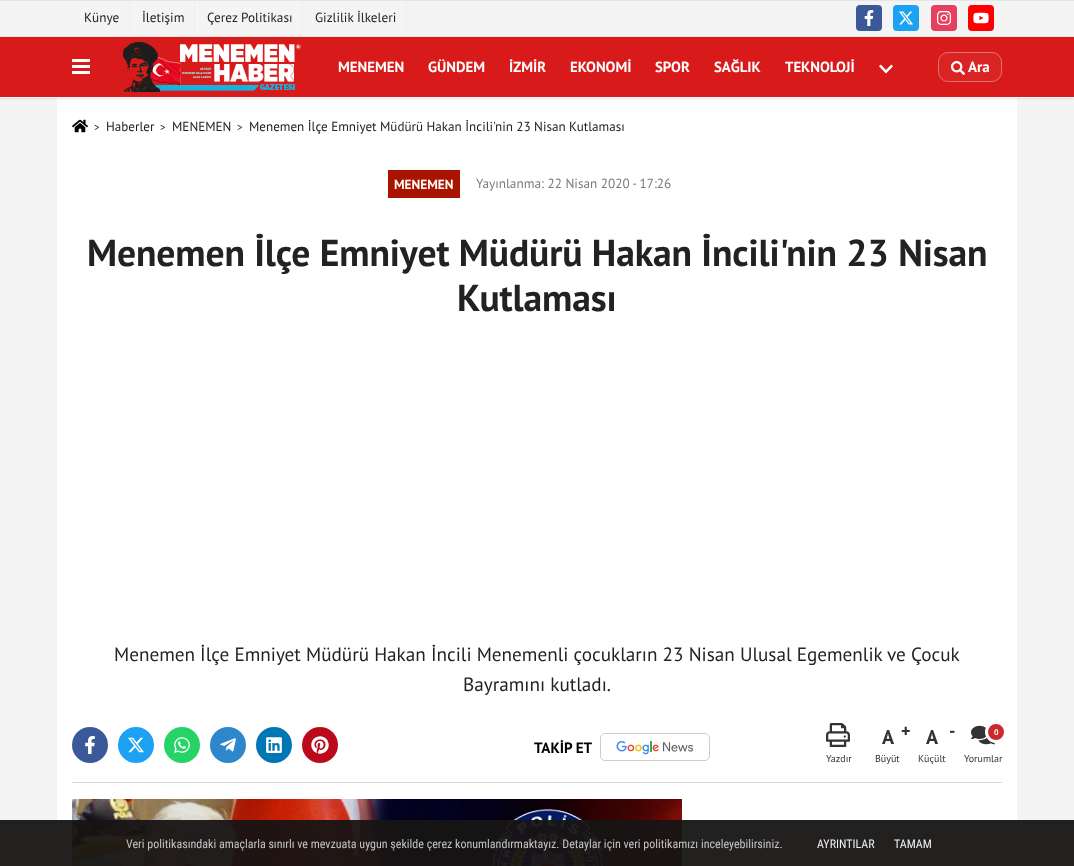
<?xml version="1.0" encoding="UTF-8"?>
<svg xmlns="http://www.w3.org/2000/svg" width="1074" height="866">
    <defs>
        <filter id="blur1" x="-50%" y="-200%" width="200%" height="500%"><feGaussianBlur stdDeviation="1"/></filter>
    </defs>
    <rect width="100%" height="100%" fill="#F4F4F4"/>
    <rect x="0" y="0" width="1074" height="1" fill="#E6E6E6"/>
    <rect x="129" y="1" width="1" height="35" fill="#EEEEEE"/>
    <text x="84" y="22" font-family="PT Sans" font-size="13.25" fill="#222222">Künye</text>
    <rect x="194" y="1" width="1" height="35" fill="#EEEEEE"/>
    <text x="142" y="22" font-family="PT Sans" font-size="13.25" fill="#222222">İletişim</text>
    <rect x="302" y="1" width="1" height="35" fill="#EEEEEE"/>
    <text x="207" y="22" font-family="PT Sans" font-size="13.25" fill="#222222">Çerez Politikası</text>
    <rect x="406" y="1" width="1" height="35" fill="#EEEEEE"/>
    <text x="315" y="22" font-family="PT Sans" font-size="13.25" fill="#222222">Gizlilik İlkeleri</text>
    <rect x="856" y="5" width="26" height="26" rx="4" fill="#3B5998"/>
    <image x="864" y="10" width="10" height="16" href="img_01.png"/>
    <rect x="893" y="5" width="26" height="26" rx="4" fill="#1DA1F2"/>
    <image x="899" y="11" width="14" height="14" href="img_02.png"/>
    <rect x="931" y="5" width="26" height="26" rx="4" fill="#E4405F"/>
    <image x="937" y="11" width="14" height="14" href="img_03.png"/>
    <rect x="968" y="5" width="26" height="26" rx="4" fill="#FF0000"/>
    <image x="973" y="12" width="16" height="12" href="img_04.png"/>
    <rect x="0" y="36" width="1074" height="1" fill="#E6E6E6"/>
    <rect x="57" y="98" width="960" height="768" fill="#FFFFFF"/>
    <rect x="0" y="38" width="1074" height="61" fill="#000000" fill-opacity="0.1" filter="url(#blur1)"/>
    <rect x="0" y="37" width="1074" height="60" fill="#D91A1A"/>
    <rect x="0" y="97" width="1074" height="1" fill="#F5F5F5"/>
    <rect x="72" y="59" width="18" height="3" fill="#FFFFFF"/>
    <rect x="72" y="65" width="18" height="3" fill="#FFFFFF"/>
    <rect x="72" y="71" width="18" height="3" fill="#FFFFFF"/>
    <image x="122" y="42" width="179" height="50" href="img_05.png"/>
    <text x="338" y="72" font-family="PT Sans" font-size="14.75" font-weight="700" fill="#FFFFFF">MENEMEN</text>
    <text x="428" y="72" font-family="PT Sans" font-size="14.75" font-weight="700" fill="#FFFFFF">GÜNDEM</text>
    <text x="509" y="72" font-family="PT Sans" font-size="14.75" font-weight="700" fill="#FFFFFF">İZMİR</text>
    <text x="570" y="72" font-family="PT Sans" font-size="14.75" font-weight="700" fill="#FFFFFF">EKONOMİ</text>
    <text x="655" y="72" font-family="PT Sans" font-size="14.75" font-weight="700" fill="#FFFFFF">SPOR</text>
    <text x="714" y="72" font-family="PT Sans" font-size="14.75" font-weight="700" fill="#FFFFFF">SAĞLIK</text>
    <text x="785" y="72" font-family="PT Sans" font-size="14.75" font-weight="700" fill="#FFFFFF">TEKNOLOJİ</text>
    <image x="879" y="64" width="14" height="10" href="img_06.png"/>
    <rect x="938" y="52" width="64" height="30" rx="10" fill="#DA2424"/>
    <rect x="938.5" y="52.5" width="63" height="29" rx="9.5" fill="none" stroke="#DDDDDD" stroke-opacity="0.42"/>
    <image x="951" y="61" width="14" height="14" href="img_07.png"/>
    <text x="968" y="72" font-family="PT Sans" font-size="15" font-weight="700" fill="#FFFFFF">Ara</text>
    <image x="72" y="119" width="16" height="14" href="img_08.png"/>
    <text x="94" y="131" font-family="PT Sans" font-size="11" fill="#222222">&gt;</text>
    <text x="106" y="131" font-family="PT Sans" font-size="13.1" fill="#222222">Haberler</text>
    <text x="160" y="131" font-family="PT Sans" font-size="11" fill="#222222">&gt;</text>
    <text x="172" y="131" font-family="PT Sans" font-size="13.1" fill="#222222">MENEMEN</text>
    <text x="237" y="131" font-family="PT Sans" font-size="11" fill="#222222">&gt;</text>
    <text x="249" y="131" font-family="PT Sans" font-size="13.1" fill="#222222">Menemen İlçe Emniyet Müdürü Hakan İncili'nin 23 Nisan Kutlaması</text>
    <rect x="388" y="170" width="72" height="28" fill="#A81400"/>
    <text x="394" y="189" font-family="PT Sans" font-size="13.25" font-weight="700" fill="#FFFFFF">MENEMEN</text>
    <text x="476" y="188" font-family="PT Sans" font-size="13.25" fill="#7A7A7A">Yayınlanma: 22 Nisan 2020 - 17:26</text>
    <text x="87" y="266" font-family="PT Sans" font-size="37.6" font-weight="700" letter-spacing="-0.1" fill="#222222">Menemen İlçe Emniyet Müdürü Hakan İncili'nin 23 Nisan</text>
    <text x="457" y="311" font-family="PT Sans" font-size="37.6" font-weight="700" letter-spacing="-0.1" fill="#222222">Kutlaması</text>
    <text x="114" y="661" font-family="PT Sans" font-size="19.2" fill="#222222">Menemen İlçe Emniyet Müdürü Hakan İncili Menemenli çocukların 23 Nisan Ulusal Egemenlik ve Çocuk</text>
    <text x="463" y="691" font-family="PT Sans" font-size="19.2" fill="#222222">Bayramını kutladı.</text>
    <circle cx="90" cy="745" r="18" fill="#3B5998"/>
    <image x="85" y="736" width="10" height="18" href="img_09.png"/>
    <circle cx="136" cy="745" r="18" fill="#1DA1F2"/>
    <image x="128" y="737" width="16" height="16" href="img_10.png"/>
    <circle cx="182" cy="745" r="18" fill="#25D366"/>
    <image x="174" y="737" width="16" height="16" href="img_11.png"/>
    <circle cx="228" cy="745" r="18" fill="#2E87CA"/>
    <image x="220" y="738" width="16" height="14" href="img_12.png"/>
    <circle cx="274" cy="745" r="18" fill="#0077B5"/>
    <image x="266" y="737" width="16" height="16" href="img_13.png"/>
    <circle cx="320" cy="745" r="18" fill="#BD081C"/>
    <image x="311" y="736" width="18" height="18" href="img_14.png"/>
    <text x="534" y="753" font-family="PT Sans" font-size="15" font-weight="700" fill="#000000">TAKİP ET</text>
    <rect x="600.5" y="733.5" width="109" height="27" rx="4.5" fill="none" stroke="#CCCCCC"/>
    <image x="616" y="741" width="78" height="14" href="img_15.png"/>
    <image x="826" y="723" width="24" height="24" href="img_16.png"/>
    <text x="826" y="762" font-family="PT Sans" font-size="10" fill="#333333">Yazdır</text>
    <text x="882" y="744" font-family="PT Sans" font-size="20" font-weight="700" fill="#333333">A</text>
    <text x="901" y="737" font-family="PT Sans" font-size="18" font-weight="700" fill="#333333">+</text>
    <text x="875" y="762" font-family="PT Sans" font-size="10" fill="#333333">Büyüt</text>
    <text x="926" y="744" font-family="PT Sans" font-size="20" font-weight="700" fill="#333333">A</text>
    <text x="949" y="737" font-family="PT Sans" font-size="18" font-weight="700" fill="#333333">-</text>
    <text x="918" y="762" font-family="PT Sans" font-size="10" fill="#333333">Küçült</text>
    <image x="971" y="725" width="24" height="20" href="img_17.png"/>
    <circle cx="996" cy="732" r="9.5" fill="#CC292B" stroke="#FFFFFF" stroke-width="3"/>
    <text x="994" y="735" font-family="PT Sans" font-size="8" font-weight="700" fill="#FFFFFF">0</text>
    <text x="964" y="762" font-family="PT Sans" font-size="10" fill="#333333">Yorumlar</text>
    <rect x="72" y="782" width="930" height="1" fill="#D9D9D9"/>
    <image x="72" y="799" width="610" height="67" href="img_18.png"/>
    <rect x="0" y="820" width="1074" height="46" fill="#171414" fill-opacity="0.95"/>
    <text x="126" y="848" font-family="Roboto Condensed" font-size="12" fill="#C3C3C3">Veri politikasındaki amaçlarla sınırlı ve mevzuata uygun şekilde çerez konumlandırmaktayız. Detaylar için veri politikamızı inceleyebilirsiniz.</text>
    <text x="817" y="848" font-family="Roboto Condensed" font-size="12" fill="#EFEFEF">AYRINTILAR</text>
    <text x="894" y="848" font-family="Roboto Condensed" font-size="12" fill="#EFEFEF">TAMAM</text>
</svg>
